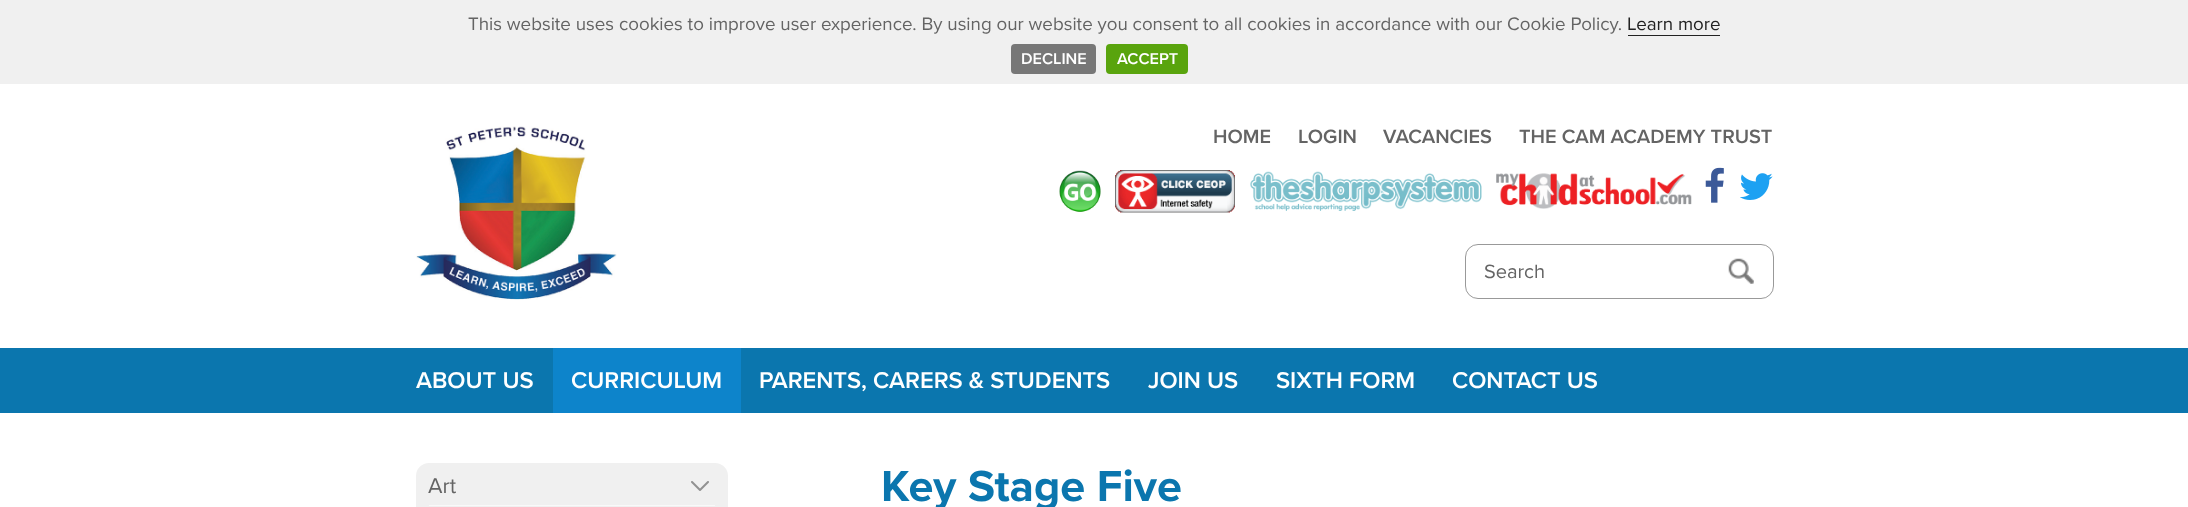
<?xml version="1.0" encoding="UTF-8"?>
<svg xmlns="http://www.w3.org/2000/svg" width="2188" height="507">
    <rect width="100%" height="100%" fill="#FFFFFF"/>
    <rect x="0" y="0" width="2188" height="84" fill="#F0F0F0"/>
    <text x="468" y="30" font-family="Proxima Nova" font-size="18.75" fill="#646464">This website uses cookies to improve user experience. By using our website you consent to all cookies in accordance with our Cookie Policy.</text>
    <text x="1627" y="30" font-family="Proxima Nova" font-size="18.75" fill="#222222">Learn more</text>
    <rect x="1628" y="35" width="92" height="1" fill="#222222"/>
    <rect x="1011" y="44" width="85" height="30" rx="4" fill="#777777"/>
    <text x="1021" y="64" font-family="Proxima Nova" font-size="16.25" font-weight="600" fill="#FFFFFF">DECLINE</text>
    <rect x="1106" y="44" width="82" height="30" rx="4" fill="#59A40D"/>
    <text x="1117" y="64" font-family="Proxima Nova" font-size="16.25" font-weight="600" fill="#FFFFFF">ACCEPT</text>
    <image x="416" y="126" width="201" height="174" href="img_01.png"/>
    <text x="1213" y="143" font-family="Proxima Nova" font-size="20" font-weight="600" fill="#646464">HOME</text>
    <text x="1298" y="143" font-family="Proxima Nova" font-size="20" font-weight="600" fill="#646464">LOGIN</text>
    <text x="1383" y="143" font-family="Proxima Nova" font-size="20" font-weight="600" fill="#646464">VACANCIES</text>
    <text x="1519" y="143" font-family="Proxima Nova" font-size="20" font-weight="600" fill="#646464">THE CAM ACADEMY TRUST</text>
    <image x="1059" y="170" width="42" height="42" href="img_02.png"/>
    <image x="1115" y="170" width="120" height="43" href="img_03.png"/>
    <image x="1250" y="171" width="232" height="40" href="img_04.png"/>
    <image x="1496" y="173" width="196" height="36" href="img_05.png"/>
    <image x="1705" y="167" width="19" height="36" href="img_06.png"/>
    <image x="1740" y="173" width="33" height="27" href="img_07.png"/>
    <rect x="1465.5" y="244.5" width="308" height="54" rx="12.5" fill="none" stroke="#999999"/>
    <text x="1484" y="278" font-family="Proxima Nova" font-size="20" fill="#646464">Search</text>
    <image x="1728" y="258" width="26" height="26" href="img_08.png"/>
    <rect x="0" y="348" width="2188" height="65" fill="#0B76AE"/>
    <text x="416" y="388" font-family="Proxima Nova" font-size="23.75" font-weight="600" fill="#FFFFFF">ABOUT US</text>
    <rect x="553" y="348" width="188" height="65" fill="#0D84CB"/>
    <text x="571" y="388" font-family="Proxima Nova" font-size="23.75" font-weight="600" fill="#FFFFFF">CURRICULUM</text>
    <text x="759" y="388" font-family="Proxima Nova" font-size="23.75" font-weight="600" fill="#FFFFFF">PARENTS, CARERS &amp; STUDENTS</text>
    <text x="1148" y="388" font-family="Proxima Nova" font-size="23.75" font-weight="600" fill="#FFFFFF">JOIN US</text>
    <text x="1276" y="388" font-family="Proxima Nova" font-size="23.75" font-weight="600" fill="#FFFFFF">SIXTH FORM</text>
    <text x="1452" y="388" font-family="Proxima Nova" font-size="23.75" font-weight="600" fill="#FFFFFF">CONTACT US</text>
    <rect x="416" y="463" width="312" height="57" rx="13" fill="#F0F0F0"/>
    <rect x="429" y="505" width="286" height="1" fill="#F9F9F9"/>
    <text x="428" y="493" font-family="Proxima Nova" font-size="22" fill="#646464">Art</text>
    <image x="691" y="481" width="18" height="10" href="img_09.png"/>
    <text x="881" y="501" font-family="Proxima Nova" font-size="45" font-weight="700" fill="#0B76AE">Key Stage Five</text>
</svg>
